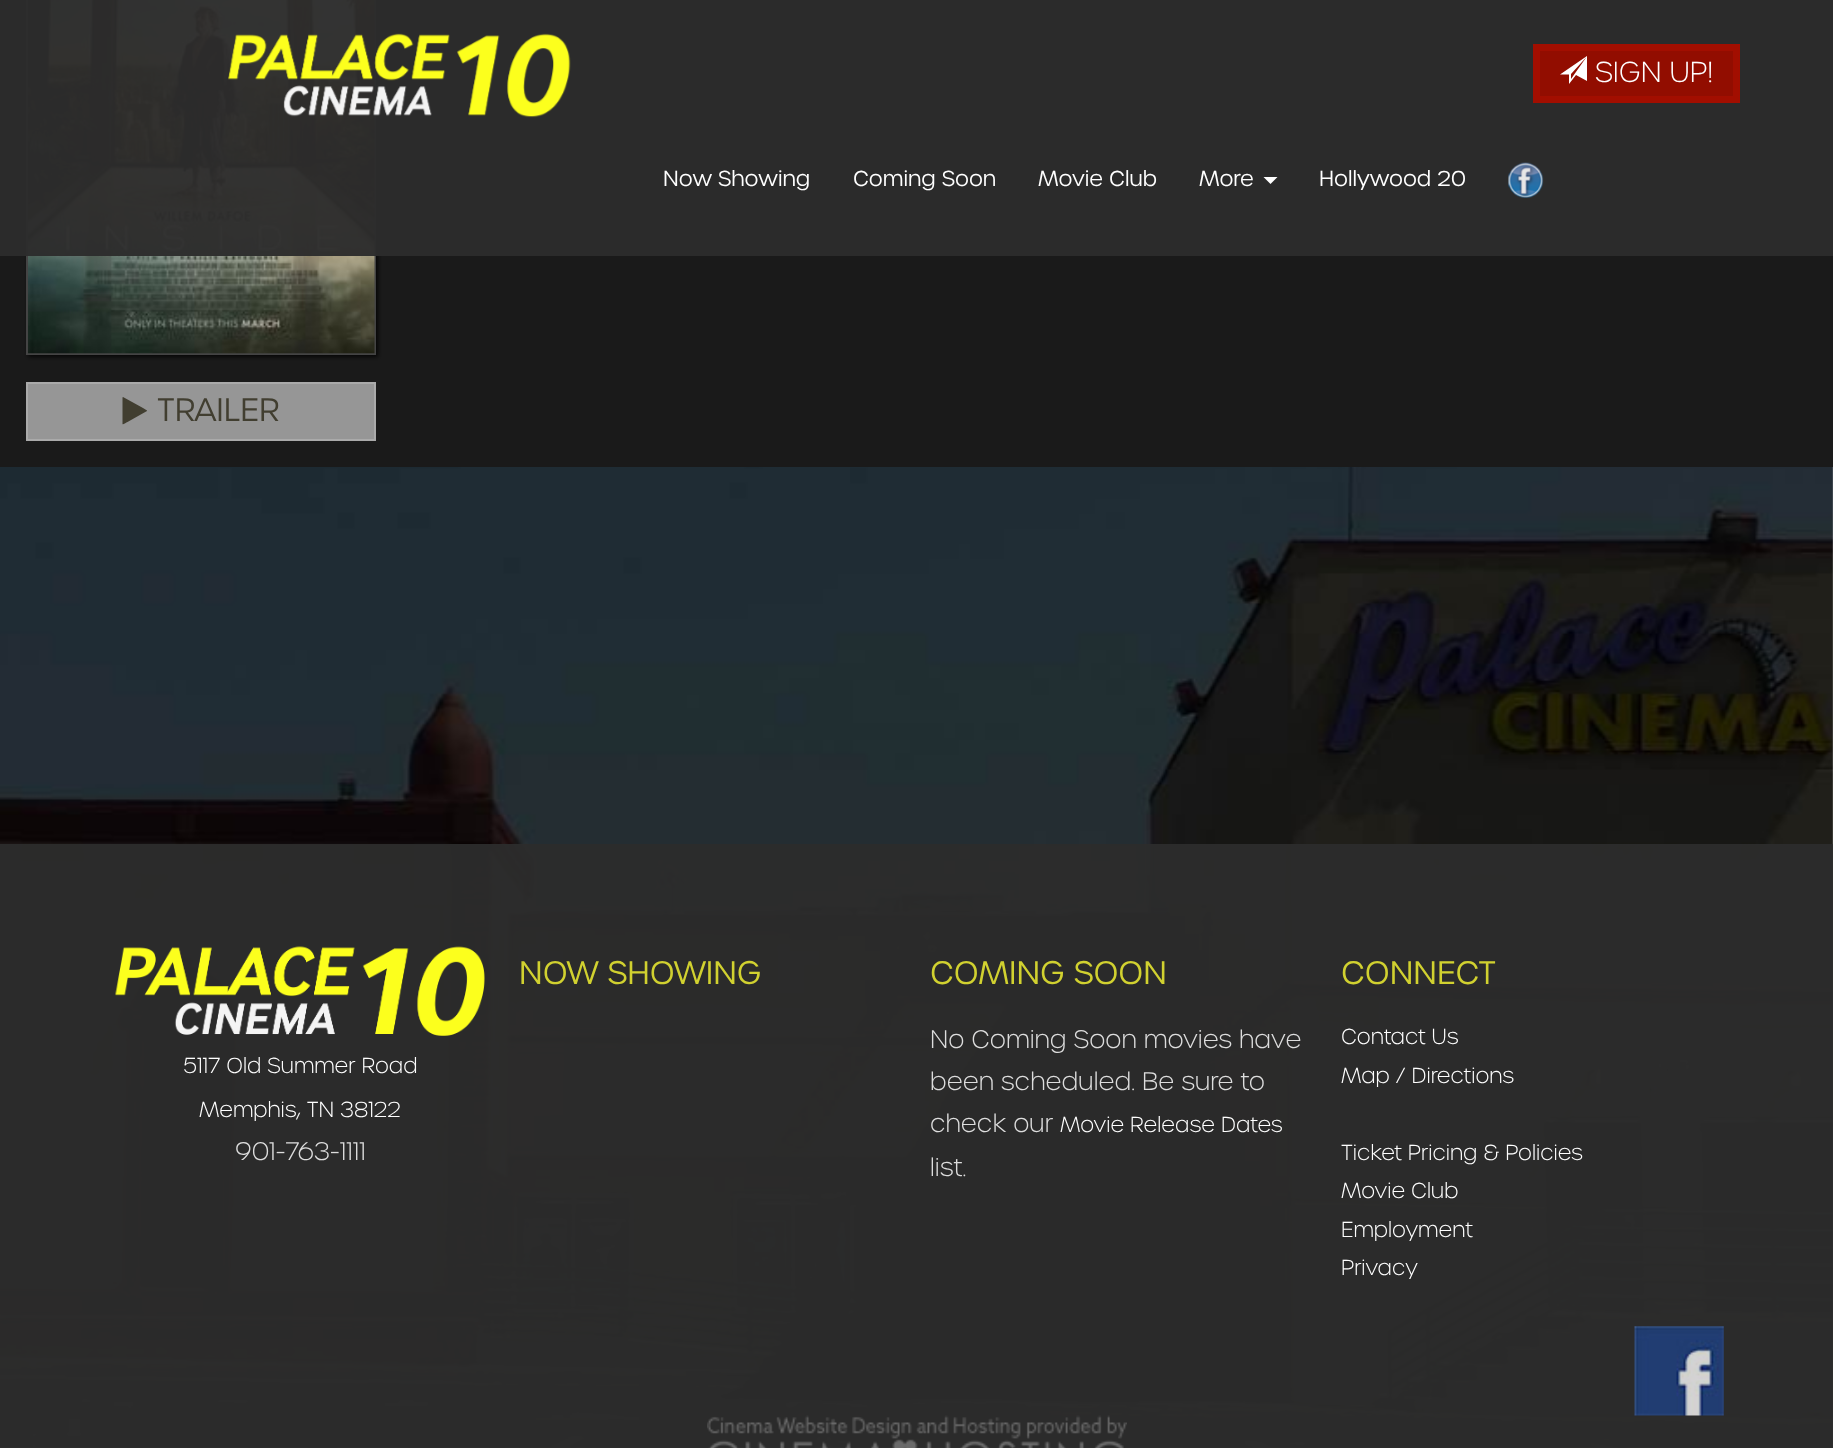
<?xml version="1.0" encoding="UTF-8"?>
<svg xmlns="http://www.w3.org/2000/svg" width="1833" height="1448">
    <defs>
        <filter id="blur1" x="-50%" y="-200%" width="200%" height="500%"><feGaussianBlur stdDeviation="2"/></filter>
    </defs>
    <rect width="100%" height="100%" fill="#FFFFFF"/>
    <image x="0" y="467" width="1833" height="981" href="img_01.png"/>
    <rect x="0" y="0" width="1833" height="467" fill="#1A1A1A"/>
    <rect x="28" y="-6" width="350" height="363" fill="#000000" fill-opacity="0.8" filter="url(#blur1)"/>
    <rect x="27" y="-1" width="348" height="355" fill="none" stroke="#444444" stroke-width="2"/>
    <image x="28" y="0" width="347" height="354" href="img_04.png"/>
    <rect x="0" y="0" width="1833" height="256" fill="#2C2C2C" fill-opacity="0.97"/>
    <image x="228" y="33" width="343" height="85" href="img_02.png"/>
    <rect x="1536.5" y="47.5" width="200" height="52" fill="#920D00" stroke="#A20E00" stroke-width="7"/>
    <path d="M 1560 74.5 L 1587 56 V 81 L 1576 75 L 1569 84 V 74.5 Z M 1571 79 L 1586.5 57 L 1571 74 Z" fill="#FFFFFF"/>
    <text x="1595" y="82" font-family="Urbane" font-size="28" font-weight="200" fill="#FFFFFF">SIGN UP!</text>
    <text x="663" y="186" font-family="Urbane" font-size="21" font-weight="300" fill="#FFFFFF">Now Showing</text>
    <text x="853" y="186" font-family="Urbane" font-size="21" font-weight="300" fill="#FFFFFF">Coming Soon</text>
    <text x="1038" y="186" font-family="Urbane" font-size="21" font-weight="300" fill="#FFFFFF">Movie Club</text>
    <text x="1199" y="186" font-family="Urbane" font-size="21" font-weight="300" fill="#FFFFFF">More</text>
    <path d="M 1263.5 177 H 1277.5 L 1270.5 184 Z" fill="#FFFFFF"/>
    <text x="1319" y="186" font-family="Urbane" font-size="21" font-weight="300" fill="#FFFFFF">Hollywood 20</text>
    <image x="1508" y="162" width="36" height="36" href="img_03.png"/>
    <rect x="27" y="383" width="348" height="57" fill="#969696" stroke="#AAAAAA" stroke-width="2"/>
    <path d="M 147 411 L 127.5 422 C 127 422 123.5 425 122.5 424 V 397.5 L 123 397 L 143 408 L 147 410.5 Z" fill="#413E30"/>
    <text x="157" y="421" font-family="Urbane" font-size="31.5" font-weight="300" fill="#413E30">TRAILER</text>
    <rect x="0" y="844" width="1833" height="604" fill="#2C2C2C" fill-opacity="0.95"/>
    <image x="115" y="946" width="370" height="90" href="img_05.png"/>
    <text x="183" y="1073" font-family="Urbane" font-size="21" font-weight="200" fill="#FFFFFF">5117 Old Summer Road</text>
    <text x="199" y="1117" font-family="Urbane" font-size="21" font-weight="200" fill="#FFFFFF">Memphis, TN 38122</text>
    <text x="235" y="1160" font-family="Urbane" font-size="24.5" font-weight="200" fill="#DDDDDD">901-763-1111</text>
    <text x="519" y="984" font-family="Urbane" font-size="31.5" font-weight="300" fill="#D1D130">NOW SHOWING</text>
    <text x="930" y="984" font-family="Urbane" font-size="31.5" font-weight="300" fill="#D1D130">COMING SOON</text>
    <text font-family="Urbane" font-size="24.5" font-weight="200" fill="#DDDDDD">
        <tspan x="930" y="1048">No Coming Soon movies have</tspan>
        <tspan x="930" y="1090">been scheduled. Be sure to</tspan>
        <tspan x="930" y="1132">check our</tspan>
    </text>
    <text x="1060" y="1132" font-family="Urbane" font-size="21" font-weight="200" fill="#FFFFFF">Movie Release Dates</text>
    <text x="930" y="1176" font-family="Urbane" font-size="24.5" font-weight="200" fill="#DDDDDD">list.</text>
    <text x="1341" y="984" font-family="Urbane" font-size="31.5" font-weight="300" fill="#D1D130">CONNECT</text>
    <text font-family="Urbane" font-size="21" font-weight="200" fill="#FFFFFF">
        <tspan x="1341" y="1044">Contact Us</tspan>
        <tspan x="1341" y="1083">Map / Directions</tspan>
    </text>
    <text font-family="Urbane" font-size="21" font-weight="200" fill="#FFFFFF">
        <tspan x="1341" y="1160">Ticket Pricing &amp; Policies</tspan>
        <tspan x="1341" y="1198">Movie Club</tspan>
        <tspan x="1341" y="1237">Employment</tspan>
        <tspan x="1341" y="1275">Privacy</tspan>
    </text>
    <image x="1634" y="1326" width="90" height="90" href="img_06.png"/>
    <image x="707" y="1415" width="420" height="33" href="img_07.png"/>
</svg>
